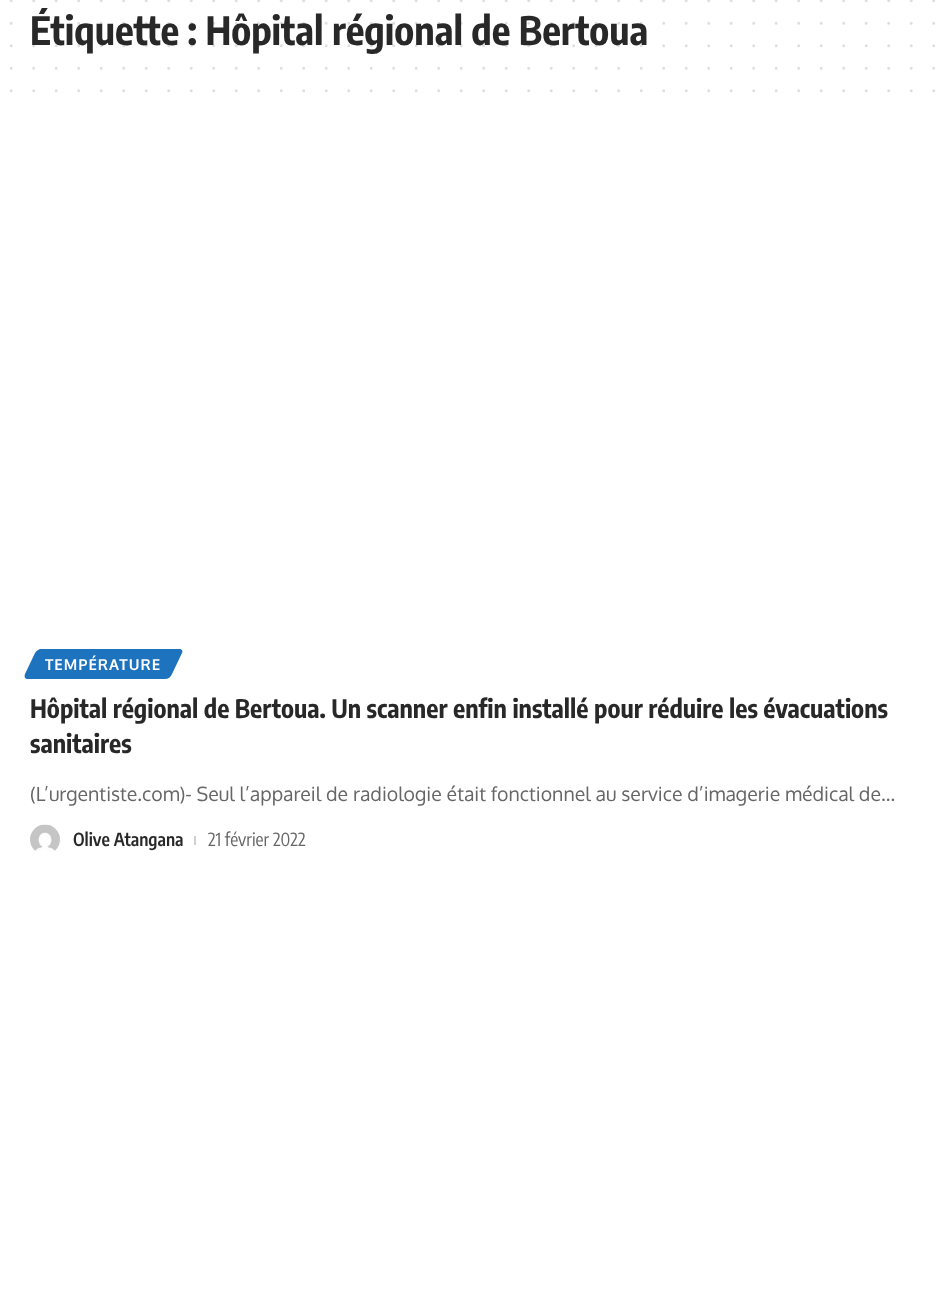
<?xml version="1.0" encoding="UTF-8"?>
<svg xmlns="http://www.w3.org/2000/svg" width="946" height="1311">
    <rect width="100%" height="100%" fill="#FFFFFF"/>
    <path d="M 11.2 0.8 H 934.1" fill="none" stroke="#DFDFDF" stroke-width="3" stroke-linecap="round" stroke-dasharray="0 22.5"/>
    <text x="30" y="45" font-family="Encode Sans Condensed" font-size="39" font-weight="700" fill="#282828">Étiquette : Hôpital régional de Bertoua</text>
    <path d="M 11.2 23.2 H 934.1" fill="none" stroke="#282828" stroke-opacity="0.15" stroke-width="3" stroke-linecap="round" stroke-dasharray="0 22.5"/>
    <path d="M 11.2 45.8 H 934.1" fill="none" stroke="#282828" stroke-opacity="0.15" stroke-width="3" stroke-linecap="round" stroke-dasharray="0 22.5"/>
    <path d="M 11.2 68.2 H 934.1" fill="none" stroke="#DFDFDF" stroke-width="3" stroke-linecap="round" stroke-dasharray="0 22.5"/>
    <path d="M 11.2 90.8 H 934.1" fill="none" stroke="#DFDFDF" stroke-width="3" stroke-linecap="round" stroke-dasharray="0 22.5"/>
    <path d="M 41 649 H 179 C 182 649 183 651 182 653 L 172 674 C 171 677 168 679 165 679 H 28 C 25 679 24 677 25 674 L 35 653 C 36 651 39 649 41 649 Z" fill="#1E73BE"/>
    <text x="45" y="670" font-family="Oxygen" font-size="15" font-weight="700" letter-spacing="1" fill="#FFFFFF">TEMPÉRATURE</text>
    <text font-family="Encode Sans Condensed" font-size="25.5" font-weight="700" fill="#282828">
        <tspan x="30" y="718">Hôpital régional de Bertoua. Un scanner enfin installé pour réduire les évacuations</tspan>
        <tspan x="30" y="753">sanitaires</tspan>
    </text>
    <text x="30" y="801" font-family="Oxygen" font-size="19.5" fill="#666666">(L’urgentiste.com)- Seul l’appareil de radiologie était fonctionnel au service d’imagerie médical de…</text>
    <image x="30" y="824" width="30" height="27" href="img_01.png"/>
    <text x="73" y="846" font-family="Encode Sans Condensed" font-size="18" font-weight="600" fill="#282828">Olive Atangana</text>
    <rect x="194" y="836" width="2" height="9" fill="#D1D1D1"/>
    <text x="208" y="846" font-family="Encode Sans Condensed" font-size="18" fill="#666666">21 février 2022</text>
</svg>
